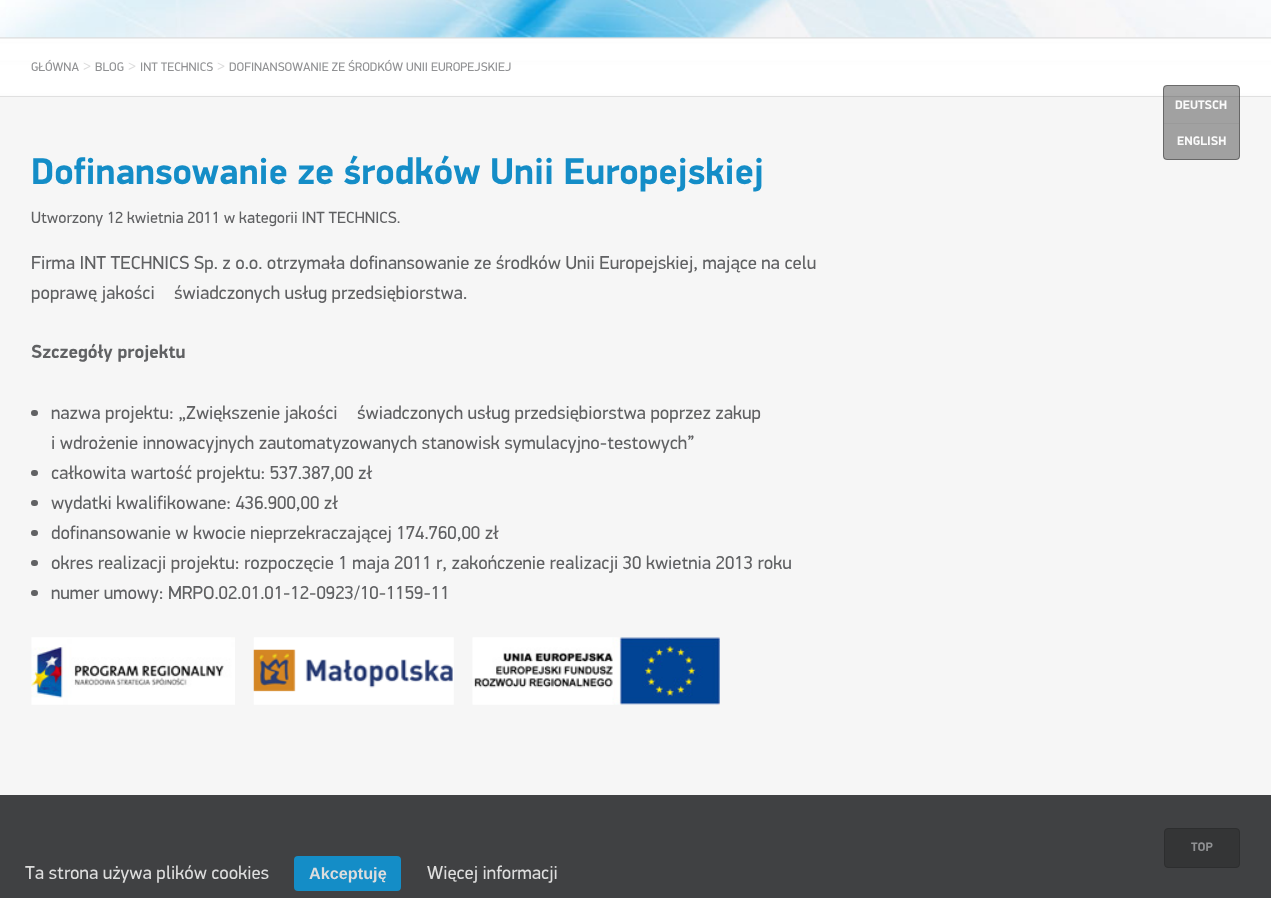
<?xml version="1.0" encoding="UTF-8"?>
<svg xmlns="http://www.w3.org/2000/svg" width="1271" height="898">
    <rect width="100%" height="100%" fill="#404143"/>
    <rect x="0" y="97" width="1271" height="1" fill="#FFFFFF"/>
    <image x="0" y="0" width="1271" height="98" href="img_01.png"/>
    <text x="31" y="71" font-family="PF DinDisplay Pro" font-size="12.5" fill="#909193">GŁÓWNA</text>
    <text x="83" y="71" font-family="PF DinDisplay Pro" font-size="16.25" fill="#DDDDDD">&gt;</text>
    <text x="95" y="71" font-family="PF DinDisplay Pro" font-size="12.5" fill="#909193">BLOG</text>
    <text x="128" y="71" font-family="PF DinDisplay Pro" font-size="16.25" fill="#DDDDDD">&gt;</text>
    <text x="140" y="71" font-family="PF DinDisplay Pro" font-size="12.5" fill="#909193">INT TECHNICS</text>
    <text x="217" y="71" font-family="PF DinDisplay Pro" font-size="16.25" fill="#DDDDDD">&gt;</text>
    <text x="229" y="71" font-family="PF DinDisplay Pro" font-size="12.5" fill="#909193">DOFINANSOWANIE ZE ŚRODKÓW UNII EUROPEJSKIEJ</text>
    <rect x="0" y="98" width="1271" height="697" fill="#F6F6F6"/>
    <rect x="1163" y="85" width="77" height="75" rx="4" fill="#222222" fill-opacity="0.4"/>
    <rect x="1163.5" y="85.5" width="76" height="74" rx="3.5" fill="none" stroke="#111111" stroke-opacity="0.4"/>
    <text x="1175" y="109" font-family="PF DinDisplay Pro" font-size="12.5" font-weight="700" fill="#FAFAFA">DEUTSCH</text>
    <rect x="1164" y="123" width="75" height="1" fill="#9A9A9A"/>
    <text x="1177" y="145" font-family="PF DinDisplay Pro" font-size="12.5" font-weight="700" fill="#FAFAFA">ENGLISH</text>
    <text x="31" y="184" font-family="PF DinDisplay Pro" font-size="37.5" font-weight="700" fill="#148DC7">Dofinansowanie ze środków Unii Europejskiej</text>
    <text x="31" y="223" font-family="PF DinDisplay Pro" font-size="16.25" fill="#606163">Utworzony 12 kwietnia 2011 w kategorii INT TECHNICS.</text>
    <text font-family="PF DinDisplay Pro" font-size="18.75" fill="#606163">
        <tspan x="31" y="269">Firma INT TECHNICS Sp. z o.o. otrzymała dofinansowanie ze środków Unii Europejskiej, mające na celu</tspan>
        <tspan x="31" y="299">poprawę jakości</tspan>
    </text>
    <text x="174" y="299" font-family="PF DinDisplay Pro" font-size="18.75" fill="#606163">świadczonych usług przedsiębiorstwa.</text>
    <text x="31" y="358" font-family="PF DinDisplay Pro" font-size="18.75" font-weight="700" fill="#606163">Szczegóły projektu</text>
    <rect x="31" y="410" width="7" height="6" rx="3" fill="#606163"/>
    <text x="51" y="419" font-family="PF DinDisplay Pro" font-size="18.75" fill="#606163">nazwa projektu: „Zwiększenie jakości</text>
    <text x="357" y="419" font-family="PF DinDisplay Pro" font-size="18.75" fill="#606163">świadczonych usług przedsiębiorstwa poprzez zakup</text>
    <text x="51" y="449" font-family="PF DinDisplay Pro" font-size="18.75" fill="#606163">i wdrożenie innowacyjnych zautomatyzowanych stanowisk symulacyjno-testowych”</text>
    <rect x="31" y="470" width="7" height="6" rx="3" fill="#606163"/>
    <text x="51" y="479" font-family="PF DinDisplay Pro" font-size="18.75" fill="#606163">całkowita wartość projektu: 537.387,00 zł</text>
    <rect x="31" y="500" width="7" height="6" rx="3" fill="#606163"/>
    <text x="51" y="509" font-family="PF DinDisplay Pro" font-size="18.75" fill="#606163">wydatki kwalifikowane: 436.900,00 zł</text>
    <rect x="31" y="530" width="7" height="6" rx="3" fill="#606163"/>
    <text x="51" y="539" font-family="PF DinDisplay Pro" font-size="18.75" fill="#606163">dofinansowanie w kwocie nieprzekraczającej 174.760,00 zł</text>
    <rect x="31" y="560" width="7" height="6" rx="3" fill="#606163"/>
    <text x="51" y="569" font-family="PF DinDisplay Pro" font-size="18.75" fill="#606163">okres realizacji projektu: rozpoczęcie 1 maja 2011 r, zakończenie realizacji 30 kwietnia 2013 roku</text>
    <rect x="31" y="590" width="7" height="6" rx="3" fill="#606163"/>
    <text x="51" y="599" font-family="PF DinDisplay Pro" font-size="18.75" fill="#606163">numer umowy: MRPO.02.01.01-12-0923/10-1159-11</text>
    <image x="31" y="637" width="204" height="68" href="img_02.png"/>
    <image x="253" y="637" width="201" height="68" href="img_03.png"/>
    <image x="472" y="637" width="248" height="68" href="img_04.png"/>
    <rect x="1164.5" y="828.5" width="75" height="39" rx="3.5" fill="#343536" stroke="#2D2E2F"/>
    <text x="1191" y="851" font-family="PF DinDisplay Pro" font-size="12.5" font-weight="700" fill="#909193">TOP</text>
    <text x="25" y="879" font-family="PF DinDisplay Pro" font-size="18.75" fill="#DDDDDD">Ta strona używa plików cookies</text>
    <rect x="294" y="856" width="107" height="35" rx="4" fill="#148DC7"/>
    <text x="309" y="879" font-family="Liberation Sans" font-size="16.25" font-weight="700" fill="#DDDDDD">Akceptuję</text>
    <text x="427" y="879" font-family="PF DinDisplay Pro" font-size="18.75" fill="#DDDDDD">Więcej informacji</text>
</svg>
